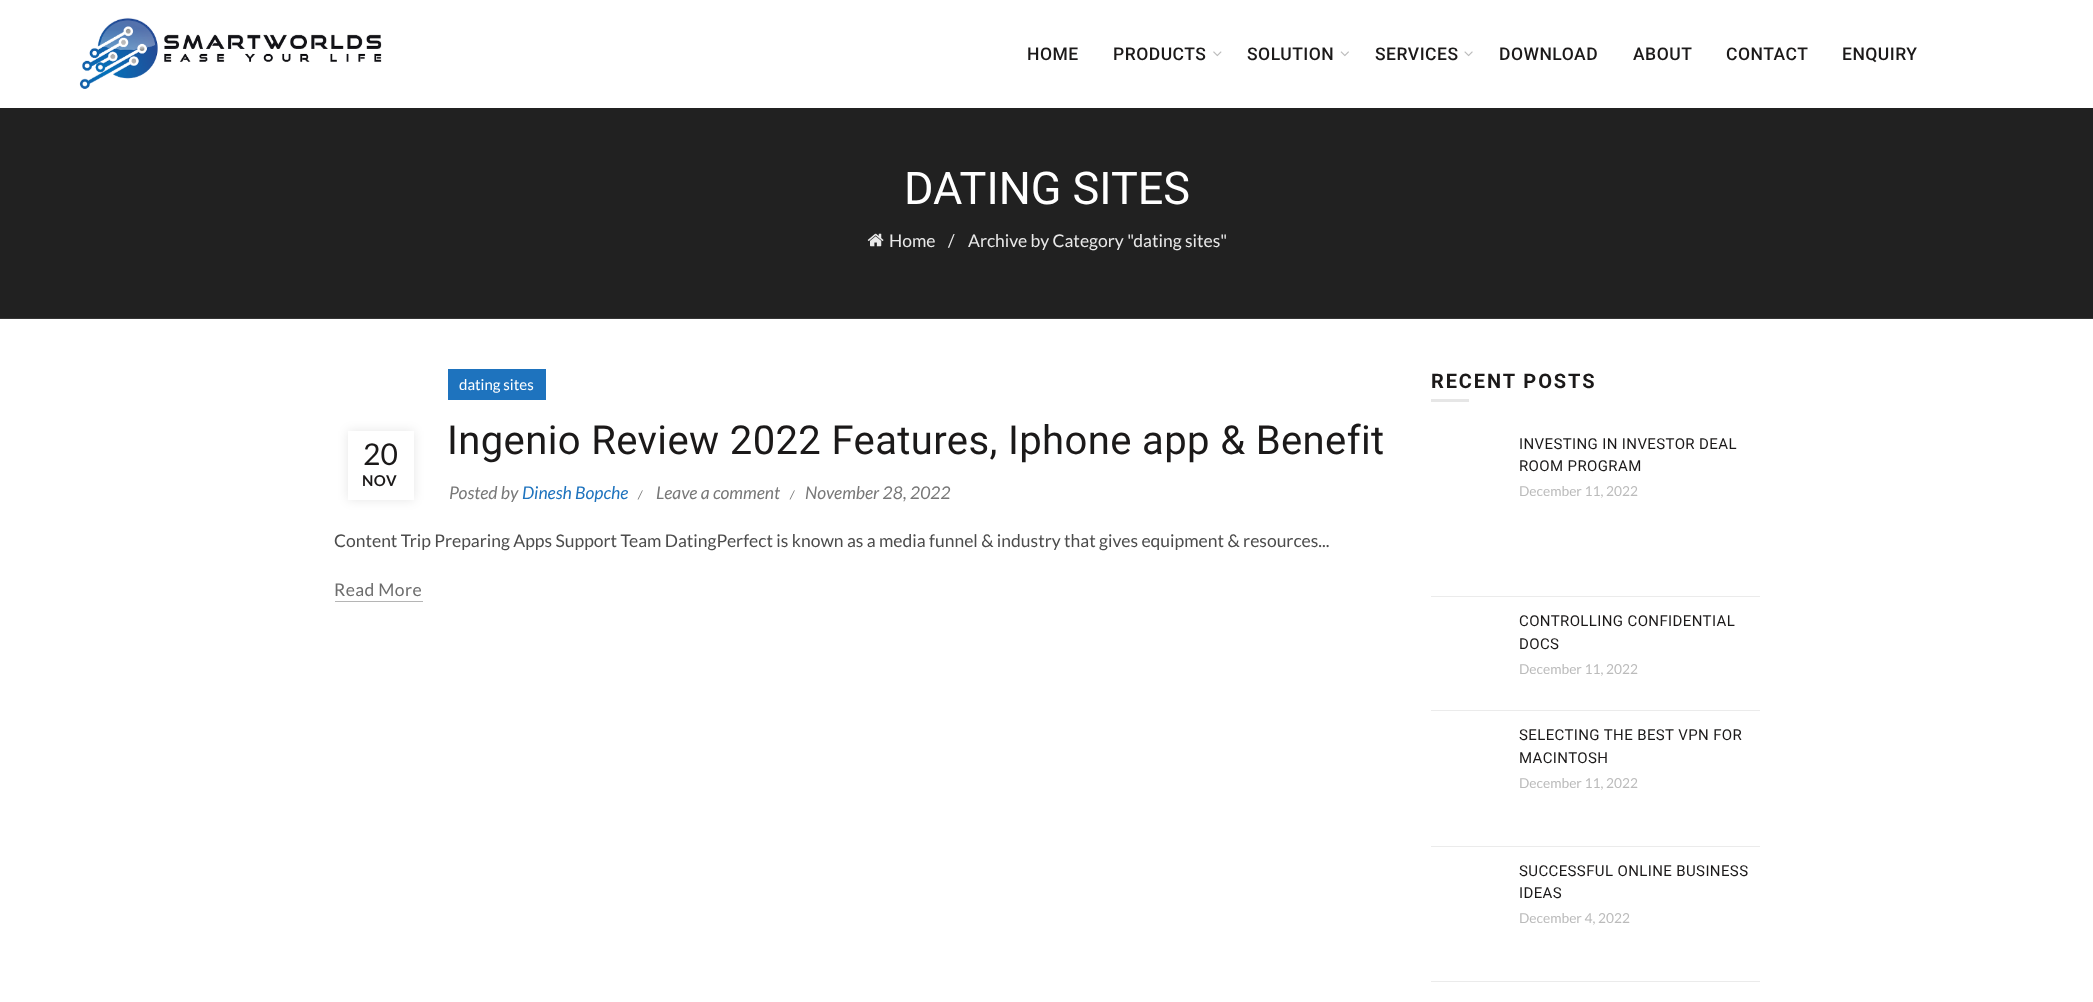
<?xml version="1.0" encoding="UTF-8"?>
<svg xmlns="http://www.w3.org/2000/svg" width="2093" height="1002">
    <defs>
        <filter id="blur1" x="-50%" y="-200%" width="200%" height="500%"><feGaussianBlur stdDeviation="5.5"/></filter>
    </defs>
    <rect width="100%" height="100%" fill="#FFFFFF"/>
    <image x="79" y="17" width="303" height="72" href="img_01.png"/>
    <text x="1027" y="60" font-family="Roboto" font-size="17.5" font-weight="500" letter-spacing="0.5" fill="#1B1919">HOME</text>
    <text x="1113" y="60" font-family="Roboto" font-size="17.5" font-weight="500" letter-spacing="0.5" fill="#1B1919">PRODUCTS</text>
    <image x="1213" y="51" width="9" height="6" href="img_02.png"/>
    <text x="1247" y="60" font-family="Roboto" font-size="17.5" font-weight="500" letter-spacing="0.5" fill="#1B1919">SOLUTION</text>
    <image x="1340" y="51" width="9" height="6" href="img_03.png"/>
    <text x="1375" y="60" font-family="Roboto" font-size="17.5" font-weight="500" letter-spacing="0.5" fill="#1B1919">SERVICES</text>
    <image x="1464" y="51" width="9" height="6" href="img_04.png"/>
    <text x="1499" y="60" font-family="Roboto" font-size="17.5" font-weight="500" letter-spacing="0.5" fill="#1B1919">DOWNLOAD</text>
    <text x="1633" y="60" font-family="Roboto" font-size="17.5" font-weight="500" letter-spacing="0.5" fill="#1B1919">ABOUT</text>
    <text x="1726" y="60" font-family="Roboto" font-size="17.5" font-weight="500" letter-spacing="0.5" fill="#1B1919">CONTACT</text>
    <text x="1842" y="60" font-family="Roboto" font-size="17.5" font-weight="500" letter-spacing="0.5" fill="#1B1919">ENQUIRY</text>
    <rect x="0" y="108" width="2093" height="210" fill="#212121"/>
    <rect x="0" y="318" width="2093" height="1" fill="#353535"/>
    <text x="904" y="204" font-family="Roboto" font-size="45" fill="#FFFFFF">DATING SITES</text>
    <image x="867" y="233" width="17" height="14" href="img_05.png"/>
    <text x="889" y="247" font-family="Lato" font-size="17.5" fill="#E9E9E9">Home</text>
    <text x="948" y="247" font-family="Lato" font-size="17.5" fill="#E9E9E9">/</text>
    <text x="968" y="247" font-family="Lato" font-size="17.5" fill="#E9E9E9">Archive by Category "dating sites"</text>
    <rect x="348" y="431" width="66" height="69" fill="#000000" fill-opacity="0.1" filter="url(#blur1)"/>
    <rect x="348" y="431" width="66" height="69" fill="#FFFFFF"/>
    <text x="363" y="465" font-family="Lato" font-size="30" fill="#1B1919">20</text>
    <text x="362" y="486" font-family="Lato" font-size="15" font-weight="700" letter-spacing="0.5" fill="#1B1919">NOV</text>
    <rect x="448" y="369" width="98" height="31" fill="#1E73BE"/>
    <text x="459" y="390" font-family="Lato" font-size="15" fill="#FFFFFF">dating sites</text>
    <text x="447" y="454" font-family="Roboto" font-size="40" letter-spacing="0.38" fill="#1B1919">Ingenio Review 2022 Features, Iphone app &amp; Benefit</text>
    <text x="449" y="499" font-family="Lato" font-size="17.5" font-style="italic" fill="#787878">Posted by</text>
    <text x="522" y="499" font-family="Lato" font-size="17.5" font-style="italic" fill="#1E73BE">Dinesh Bopche</text>
    <text x="638" y="499" font-family="Lato" font-size="12" font-style="italic" fill="#787878">/</text>
    <text x="656" y="499" font-family="Lato" font-size="17.5" font-style="italic" fill="#787878">Leave a comment</text>
    <text x="790" y="499" font-family="Lato" font-size="12" font-style="italic" fill="#787878">/</text>
    <text x="805" y="499" font-family="Lato" font-size="17.5" font-style="italic" fill="#787878">November 28, 2022</text>
    <text x="334" y="547" font-family="Lato" font-size="17.5" fill="#4C4C4C">Content Trip Preparing Apps Support Team DatingPerfect is known as a media funnel &amp; industry that gives equipment &amp; resources...</text>
    <rect x="335" y="601" width="88" height="1" fill="#B5B5B5"/>
    <text x="334" y="596" font-family="Lato" font-size="17.5" letter-spacing="0.38" fill="#6D6D6D">Read More</text>
    <text x="1431" y="388" font-family="Roboto" font-size="20" font-weight="700" letter-spacing="1.9" fill="#1B1919">RECENT POSTS</text>
    <rect x="1431" y="399" width="38" height="3" fill="#E6E6E6"/>
    <rect x="1431" y="596" width="329" height="1" fill="#EBEBEB"/>
    <text font-family="Roboto" font-size="15" letter-spacing="0.38" fill="#1B1919">
        <tspan x="1519" y="449">INVESTING IN INVESTOR DEAL</tspan>
        <tspan x="1519" y="471">ROOM PROGRAM</tspan>
    </text>
    <text x="1519" y="496" font-family="Lato" font-size="13.75" fill="#BBBBBB">December 11, 2022</text>
    <rect x="1431" y="710" width="329" height="1" fill="#EBEBEB"/>
    <text font-family="Roboto" font-size="15" letter-spacing="0.38" fill="#1B1919">
        <tspan x="1519" y="626">CONTROLLING CONFIDENTIAL</tspan>
        <tspan x="1519" y="649">DOCS</tspan>
    </text>
    <text x="1519" y="674" font-family="Lato" font-size="13.75" fill="#BBBBBB">December 11, 2022</text>
    <rect x="1431" y="846" width="329" height="1" fill="#EBEBEB"/>
    <text font-family="Roboto" font-size="15" letter-spacing="0.38" fill="#1B1919">
        <tspan x="1519" y="740">SELECTING THE BEST VPN FOR</tspan>
        <tspan x="1519" y="763">MACINTOSH</tspan>
    </text>
    <text x="1519" y="788" font-family="Lato" font-size="13.75" fill="#BBBBBB">December 11, 2022</text>
    <rect x="1431" y="981" width="329" height="1" fill="#EBEBEB"/>
    <text font-family="Roboto" font-size="15" letter-spacing="0.38" fill="#1B1919">
        <tspan x="1519" y="876">SUCCESSFUL ONLINE BUSINESS</tspan>
        <tspan x="1519" y="898">IDEAS</tspan>
    </text>
    <text x="1519" y="923" font-family="Lato" font-size="13.75" fill="#BBBBBB">December 4, 2022</text>
</svg>
